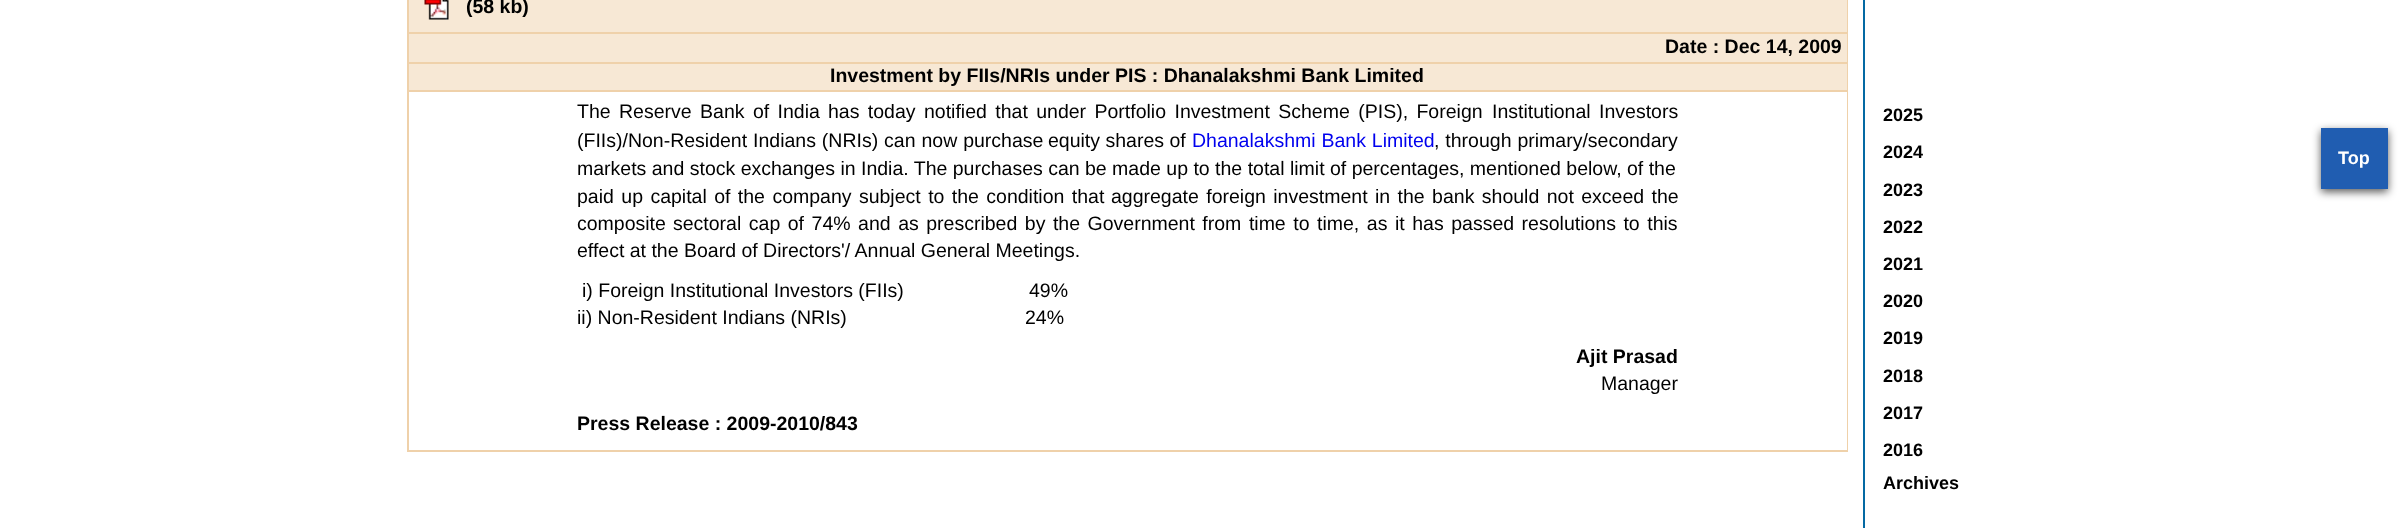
<?xml version="1.0" encoding="UTF-8"?>
<svg xmlns="http://www.w3.org/2000/svg" width="2402" height="528">
    <defs>
        <filter id="blur1" x="-50%" y="-200%" width="200%" height="500%"><feGaussianBlur stdDeviation="4.5"/></filter>
    </defs>
    <rect width="100%" height="100%" fill="#FFFFFF"/>
    <rect x="1863" y="0" width="2" height="528" fill="#0469A3"/>
    <rect x="409" y="0" width="1438" height="32" fill="#F7E8D5"/>
    <image x="424" y="0" width="25" height="20" href="img_01.png"/>
    <text x="466" y="13" font-family="Liberation Sans" font-size="19.5" font-weight="700" fill="#000000">(58 kb)</text>
    <rect x="409" y="34" width="1438" height="28" fill="#F7E8D5"/>
    <rect x="407" y="32" width="1441" height="2" fill="#EFD1AA"/>
    <rect x="407" y="62" width="1441" height="2" fill="#EFD1AA"/>
    <rect x="407" y="90" width="1441" height="2" fill="#EFD1AA"/>
    <rect x="1847" y="90" width="1" height="362" fill="#EFD1AA"/>
    <rect x="1847" y="62" width="1" height="30" fill="#EFD1AA"/>
    <rect x="1847" y="0" width="1" height="63" fill="#EFD1AA"/>
    <rect x="407" y="450" width="1441" height="2" fill="#EFD1AA"/>
    <rect x="407" y="90" width="2" height="362" fill="#EFD1AA"/>
    <rect x="407" y="62" width="2" height="30" fill="#EFD1AA"/>
    <rect x="407" y="0" width="2" height="63" fill="#EFD1AA"/>
    <text x="1665" y="53" font-family="Liberation Sans" font-size="19.5" font-weight="700" fill="#000000">Date : Dec 14, 2009</text>
    <rect x="409" y="64" width="1438" height="26" fill="#F7E8D5"/>
    <text x="830" y="82" font-family="Liberation Sans" font-size="19.5" font-weight="700" fill="#000000">Investment by FIIs/NRIs under PIS : Dhanalakshmi Bank Limited</text>
    <text x="577" y="118" word-spacing="3" font-family="Liberation Sans" font-size="19.5" fill="#000000">The Reserve Bank of India</text>
    <text x="828" y="118" word-spacing="3" font-family="Liberation Sans" font-size="19.5" fill="#000000">has today notified that under Portfolio Investment Scheme (PIS), Foreign</text>
    <text x="1492" y="118" word-spacing="3" font-family="Liberation Sans" font-size="19.5" fill="#000000">Institutional Investors</text>
    <text x="577" y="147" word-spacing="0.5" font-family="Liberation Sans" font-size="19.5" fill="#000000">(FIIs)/Non-Resident Indians (NRIs) can now purchase</text>
    <text x="1048" y="147" font-family="Liberation Sans" font-size="19.5" fill="#000000">equity shares of</text>
    <text x="1192" y="147" word-spacing="0.5" font-family="Liberation Sans" font-size="19.5" fill="#0000EE">Dhanalakshmi Bank Limited</text>
    <text x="1434" y="147" word-spacing="0.5" font-family="Liberation Sans" font-size="19.5" fill="#000000">, through primary/secondary</text>
    <text font-family="Liberation Sans" font-size="19.5" fill="#000000">
        <tspan x="577" y="175">markets and stock exchanges in India. The purchases can be made up to the total limit of percentages, mentioned below, of the</tspan>
        <tspan x="577" y="203" word-spacing="2">paid up capital of the company subject to the condition that</tspan>
    </text>
    <text x="1111" y="203" word-spacing="2" font-family="Liberation Sans" font-size="19.5" fill="#000000">aggregate foreign investment in the bank should not exceed the</text>
    <text x="577" y="230" font-family="Liberation Sans" font-size="19.5" fill="#000000">composite</text>
    <text x="673" y="230" word-spacing="2.1" font-family="Liberation Sans" font-size="19.5" fill="#000000">sectoral cap of 74% and as prescribed by the Government from time to time, as</text>
    <text x="1395" y="230" word-spacing="2.1" font-family="Liberation Sans" font-size="19.5" fill="#000000">it has passed resolutions to this</text>
    <text x="577" y="257" font-family="Liberation Sans" font-size="19.5" fill="#000000">effect at the Board of Directors'/ Annual General Meetings.</text>
    <text x="582" y="297" font-family="Liberation Sans" font-size="19.5" fill="#000000">i) Foreign Institutional Investors (FIIs)</text>
    <text x="1029" y="297" font-family="Liberation Sans" font-size="19.5" fill="#000000">49%</text>
    <text x="577" y="324" font-family="Liberation Sans" font-size="19.5" fill="#000000">ii) Non-Resident Indians (NRIs)</text>
    <text x="1025" y="324" font-family="Liberation Sans" font-size="19.5" fill="#000000">24%</text>
    <text x="1576" y="363" font-family="Liberation Sans" font-size="19.5" font-weight="700" fill="#000000">Ajit Prasad</text>
    <text x="1601" y="390" font-family="Liberation Sans" font-size="19.5" fill="#000000">Manager</text>
    <text x="577" y="430" font-family="Liberation Sans" font-size="19.5" font-weight="700" fill="#000000">Press Release : 2009-2010/843</text>
    <text x="1883" y="121" font-family="Liberation Sans" font-size="18" font-weight="700" fill="#000000">2025</text>
    <text x="1883" y="158" font-family="Liberation Sans" font-size="18" font-weight="700" fill="#000000">2024</text>
    <text x="1883" y="196" font-family="Liberation Sans" font-size="18" font-weight="700" fill="#000000">2023</text>
    <text x="1883" y="233" font-family="Liberation Sans" font-size="18" font-weight="700" fill="#000000">2022</text>
    <text x="1883" y="270" font-family="Liberation Sans" font-size="18" font-weight="700" fill="#000000">2021</text>
    <text x="1883" y="307" font-family="Liberation Sans" font-size="18" font-weight="700" fill="#000000">2020</text>
    <text x="1883" y="344" font-family="Liberation Sans" font-size="18" font-weight="700" fill="#000000">2019</text>
    <text x="1883" y="382" font-family="Liberation Sans" font-size="18" font-weight="700" fill="#000000">2018</text>
    <text x="1883" y="419" font-family="Liberation Sans" font-size="18" font-weight="700" fill="#000000">2017</text>
    <text font-family="Liberation Sans" font-size="18" font-weight="700" fill="#000000">
        <tspan x="1883" y="456">2016</tspan>
        <tspan x="1883" y="489">Archives</tspan>
    </text>
    <rect x="2321" y="131" width="67" height="61" fill="#000000" fill-opacity="0.65" filter="url(#blur1)"/>
    <rect x="2321" y="128" width="67" height="61" fill="#205DB1"/>
    <text x="2338" y="164" font-family="Liberation Sans" font-size="18" font-weight="700" fill="#FFFFFF">Top</text>
</svg>
